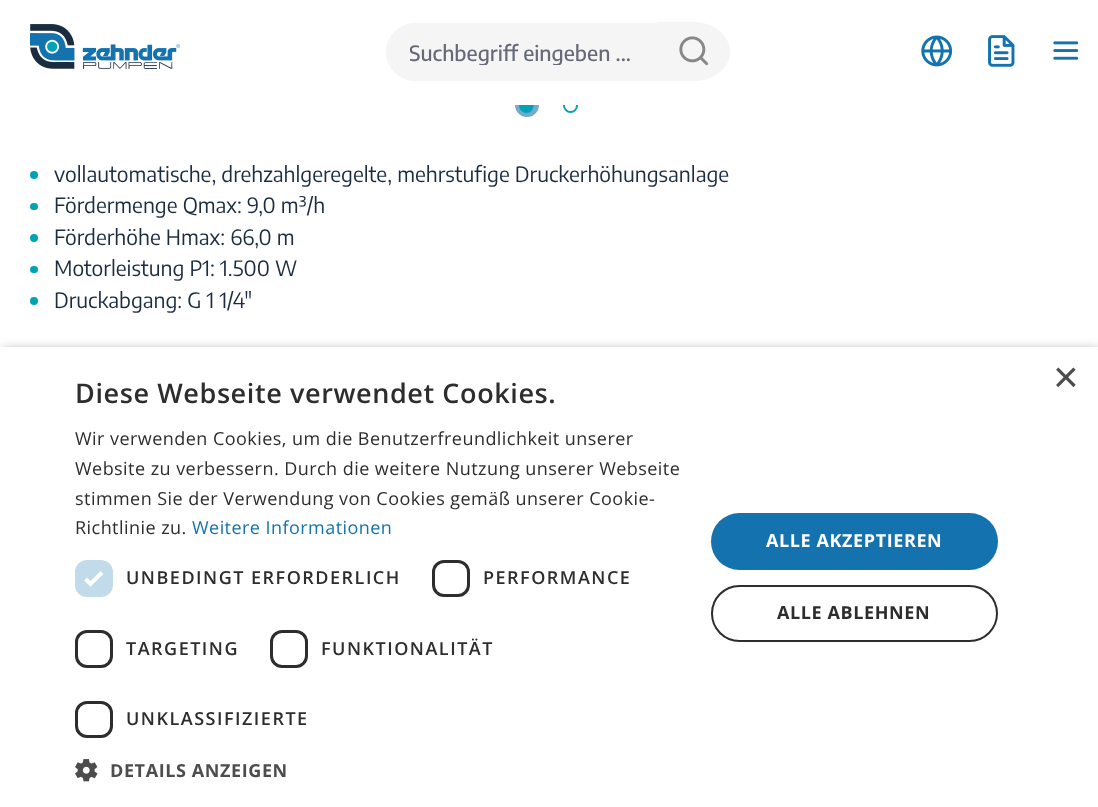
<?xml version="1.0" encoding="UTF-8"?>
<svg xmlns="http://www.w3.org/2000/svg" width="1098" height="807">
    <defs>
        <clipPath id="clip1"><rect x="410" y="39" width="225" height="26"/></clipPath>
        <filter id="blur1" x="-50%" y="-200%" width="200%" height="500%"><feGaussianBlur stdDeviation="6"/></filter>
    </defs>
    <rect width="100%" height="100%" fill="#FFFFFF"/>
    <circle cx="527" cy="105" r="9.5" fill="none" stroke="#72ABCE" stroke-width="5"/>
    <circle cx="526.5" cy="105.5" r="6.5" fill="#00A3B5" stroke="#00A3B5" stroke-width="2"/>
    <circle cx="570.5" cy="105.5" r="6.5" fill="none" stroke="#00A3B5" stroke-width="2"/>
    <rect x="515" y="93" width="63" height="12" fill="#FFFFFF"/>
    <image x="30" y="24" width="150" height="45" href="img_01.png"/>
    <path d="M 415 23 H 659 V 81 H 415 C 399 81 386 68 386 52 C 386 36 399 23 415 23 Z" fill="#F5F5F5"/>
    <g clip-path="url(#clip1)">
        <text x="409" y="61" font-family="Encode Sans" font-size="21" font-weight="500" fill="#666977">Suchbegriff eingeben ...</text>
    </g>
    <path d="M 657 22 H 694 C 714 22 730 36 730 52 C 730 68 714 81 694 81 H 657 Z" fill="#F5F5F5"/>
    <image x="679" y="36" width="30" height="30" href="img_02.png"/>
    <image x="921" y="35" width="32" height="32" href="img_03.png"/>
    <image x="988" y="35" width="27" height="32" href="img_04.png"/>
    <image x="1053" y="41" width="26" height="19" href="img_05.png"/>
    <circle cx="34" cy="175" r="4" fill="#00A3B5"/>
    <text x="54" y="182" font-family="Encode Sans" font-size="21" fill="#1B2C40">vollautomatische, drehzahlgeregelte, mehrstufige Druckerhöhungsanlage</text>
    <rect x="30" y="203" width="8" height="7" rx="3.5" fill="#00A3B5"/>
    <text x="54" y="213" font-family="Encode Sans" font-size="21" fill="#1B2C40">Fördermenge Qmax: 9,0 m³/h</text>
    <circle cx="34" cy="238" r="4" fill="#00A3B5"/>
    <text x="54" y="245" font-family="Encode Sans" font-size="21" fill="#1B2C40">Förderhöhe Hmax: 66,0 m</text>
    <rect x="30" y="266" width="8" height="7" rx="3.5" fill="#00A3B5"/>
    <text x="54" y="276" font-family="Encode Sans" font-size="21" fill="#1B2C40">Motorleistung P1: 1.500 W</text>
    <circle cx="34" cy="301" r="4" fill="#00A3B5"/>
    <text x="54" y="308" font-family="Encode Sans" font-size="21" fill="#1B2C40">Druckabgang: G 1 1/4"</text>
    <rect x="2" y="350" width="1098" height="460" fill="#000000" fill-opacity="0.35" filter="url(#blur1)"/>
    <rect x="0" y="347" width="1098" height="460" fill="#FFFFFF"/>
    <text x="1053" y="392" font-family="Liberation Sans" font-size="44" fill="#4D4D4D">×</text>
    <text x="75" y="403" font-family="Open Sans" font-size="27" font-weight="600" letter-spacing="0.6" fill="#2D2D2D">Diese Webseite verwendet Cookies.</text>
    <text font-family="Open Sans" font-size="18" letter-spacing="0.45" fill="#2D2D2D">
        <tspan x="75" y="445">Wir verwenden Cookies, um die Benutzerfreundlichkeit unserer</tspan>
        <tspan x="75" y="475">Website zu verbessern. Durch die weitere Nutzung unserer Webseite</tspan>
        <tspan x="75" y="505">stimmen Sie der Verwendung von Cookies gemäß unserer Cookie-</tspan>
        <tspan x="75" y="534">Richtlinie zu.</tspan>
    </text>
    <text x="192" y="534" font-family="Open Sans" font-size="18" letter-spacing="0.45" fill="#1473AE">Weitere Informationen</text>
    <rect x="75" y="560" width="38" height="37" rx="12" fill="#C2DBEA"/>
    <path d="M 85.5 579 L 90.5 584 L 102 572.5" fill="none" stroke="#FFFFFF" stroke-width="3.9"/>
    <text x="126" y="584" font-family="Open Sans" font-size="18" font-weight="600" letter-spacing="1.5" fill="#2D2D2D">UNBEDINGT ERFORDERLICH</text>
    <rect x="433.5" y="561.5" width="35" height="34" rx="10.5" fill="none" stroke="#2D2D2D" stroke-width="3"/>
    <text x="483" y="584" font-family="Open Sans" font-size="18" font-weight="600" letter-spacing="1.5" fill="#2D2D2D">PERFORMANCE</text>
    <rect x="76.5" y="631.5" width="35" height="35" rx="10.5" fill="none" stroke="#2D2D2D" stroke-width="3"/>
    <text x="126" y="655" font-family="Open Sans" font-size="18" font-weight="600" letter-spacing="1.5" fill="#2D2D2D">TARGETING</text>
    <rect x="271.5" y="631.5" width="35" height="35" rx="10.5" fill="none" stroke="#2D2D2D" stroke-width="3"/>
    <text x="321" y="655" font-family="Open Sans" font-size="18" font-weight="600" letter-spacing="1.5" fill="#2D2D2D">FUNKTIONALITÄT</text>
    <rect x="76.5" y="702.5" width="35" height="34" rx="10.5" fill="none" stroke="#2D2D2D" stroke-width="3"/>
    <text x="126" y="725" font-family="Open Sans" font-size="18" font-weight="600" letter-spacing="1.5" fill="#2D2D2D">UNKLASSIFIZIERTE</text>
    <image x="75" y="759" width="23" height="23" href="img_06.png"/>
    <text x="110" y="777" font-family="Open Sans" font-size="18" font-weight="700" letter-spacing="0.6" fill="#4D4D4D">DETAILS ANZEIGEN</text>
    <rect x="711" y="513" width="287" height="57" rx="28.5" fill="#1473AE"/>
    <text x="766" y="547" font-family="Open Sans" font-size="18" font-weight="700" letter-spacing="0.6" fill="#FFFFFF">ALLE AKZEPTIEREN</text>
    <rect x="712" y="586" width="285" height="55" rx="27.5" fill="none" stroke="#2D2D2D" stroke-width="2"/>
    <text x="777" y="619" font-family="Open Sans" font-size="18" font-weight="700" letter-spacing="0.6" fill="#2D2D2D">ALLE ABLEHNEN</text>
</svg>
